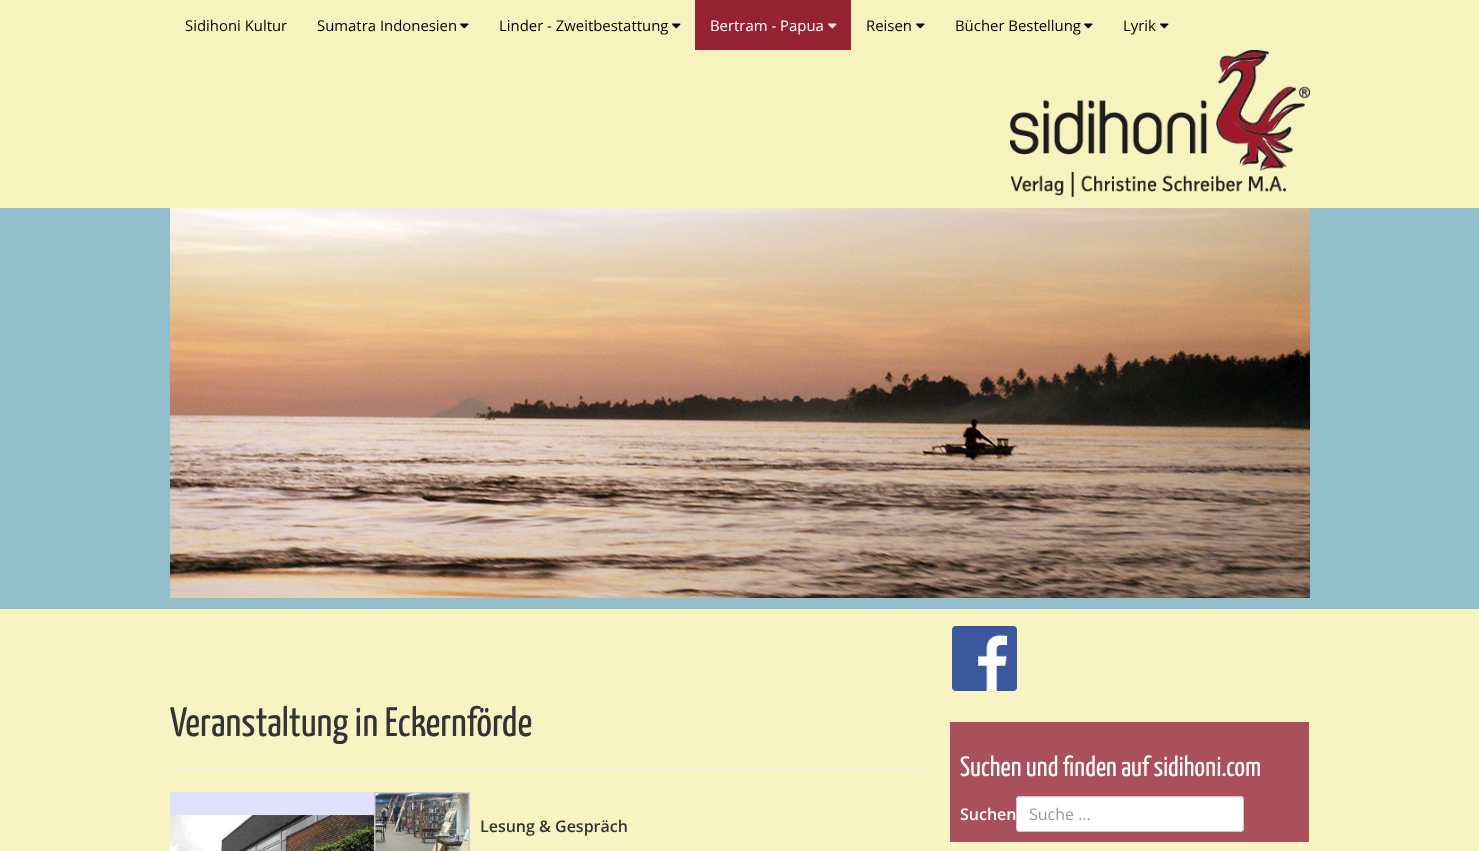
<?xml version="1.0" encoding="UTF-8"?>
<svg xmlns="http://www.w3.org/2000/svg" width="1479" height="851">
    <rect width="100%" height="100%" fill="#F8F3C3"/>
    <rect x="0" y="0" width="1479" height="208" fill="#F7F3BE"/>
    <image x="1010" y="50" width="300" height="147" href="img_01.png"/>
    <text x="185" y="31" font-family="Open Sans" font-size="14.9" fill="#000000">Sidihoni Kultur</text>
    <text x="317" y="31" font-family="Open Sans" font-size="14.9" fill="#000000">Sumatra Indonesien</text>
    <image x="460" y="23" width="9" height="6" href="img_02.png"/>
    <text x="499" y="31" font-family="Open Sans" font-size="14.9" fill="#000000">Linder - Zweitbestattung</text>
    <image x="672" y="23" width="9" height="6" href="img_02.png"/>
    <rect x="695" y="0" width="156" height="50" fill="#952233"/>
    <text x="710" y="31" font-family="Open Sans" font-size="14.9" fill="#FFFFFF">Bertram - Papua</text>
    <image x="828" y="23" width="9" height="6" href="img_03.png"/>
    <text x="866" y="31" font-family="Open Sans" font-size="14.9" fill="#000000">Reisen</text>
    <image x="916" y="23" width="9" height="6" href="img_02.png"/>
    <text x="955" y="31" font-family="Open Sans" font-size="14.9" fill="#000000">Bücher Bestellung</text>
    <image x="1084" y="23" width="9" height="6" href="img_02.png"/>
    <text x="1123" y="31" font-family="Open Sans" font-size="14.9" fill="#000000">Lyrik</text>
    <image x="1160" y="23" width="9" height="6" href="img_02.png"/>
    <rect x="0" y="208" width="1479" height="401" fill="#92BECC"/>
    <image x="170" y="208" width="1140" height="390" href="img_04.png"/>
    <rect x="170" y="769" width="750" height="1" fill="#EEEEEE"/>
    <text x="170" y="736" font-family="Yanone Kaffeesatz" font-size="41" fill="#333333">Veranstaltung in Eckernförde</text>
    <image x="170" y="792" width="300" height="59" href="img_05.png"/>
    <text x="480" y="832" font-family="Open Sans" font-size="16" font-weight="600" fill="#333333">Lesung &amp; Gespräch</text>
    <image x="952" y="626" width="65" height="65" href="img_06.png"/>
    <rect x="950" y="722" width="359" height="120" fill="#AA505B"/>
    <text x="960" y="776" font-family="Yanone Kaffeesatz" font-size="28" fill="#FFFFFF">Suchen und finden auf sidihoni.com</text>
    <text x="960" y="820" font-family="Open Sans" font-size="16" font-weight="600" fill="#FFFFFF">Suchen</text>
    <rect x="1016" y="796" width="228" height="36" rx="4" fill="#FFFFFF"/>
    <path d="M 1020 798 H 1240 C 1242 798 1243 799 1243 801 V 800 C 1243 798 1242 797 1240 797 H 1020 C 1018 797 1017 798 1017 800 V 801 C 1017 799 1018 798 1020 798 Z" fill="#ECECEC"/>
    <rect x="1016.5" y="796.5" width="227" height="35" rx="3.5" fill="none" stroke="#CCCCCC"/>
    <text x="1029" y="820" font-family="Open Sans" font-size="16" fill="#999999">Suche …</text>
</svg>
